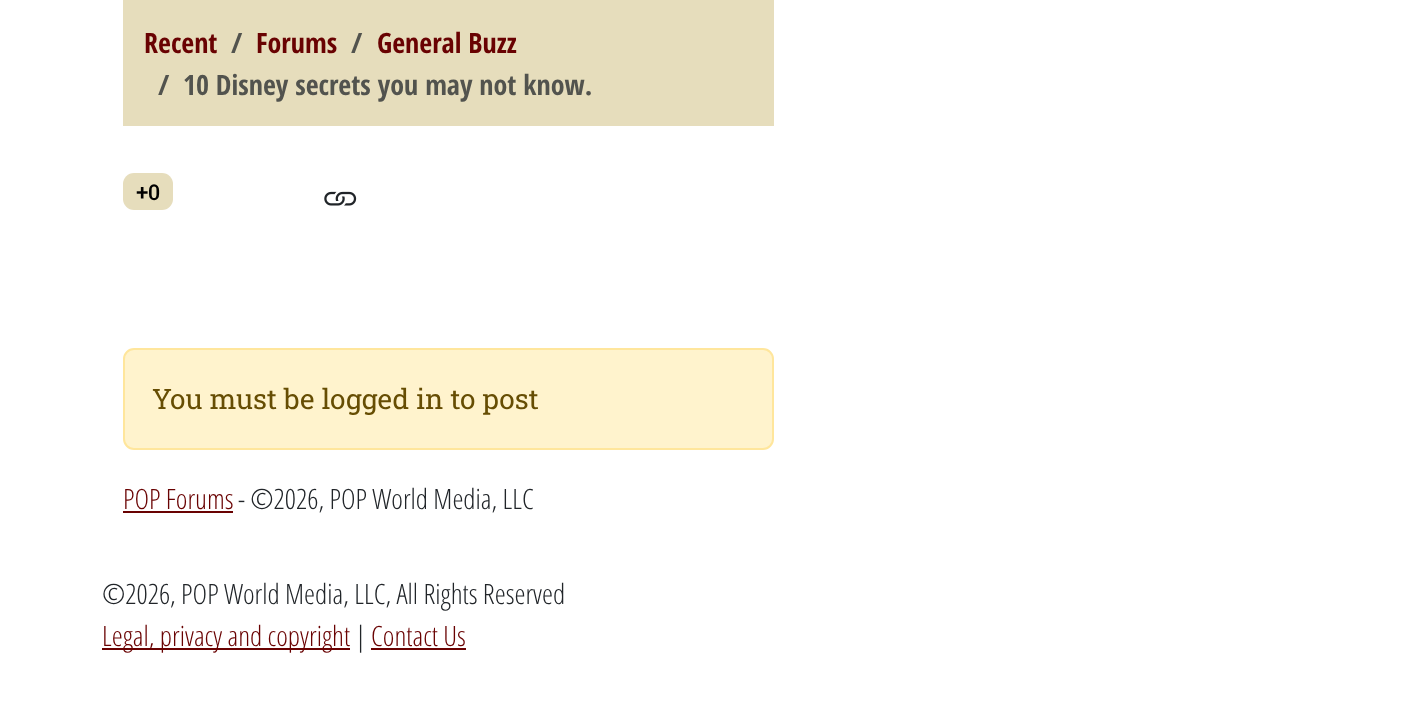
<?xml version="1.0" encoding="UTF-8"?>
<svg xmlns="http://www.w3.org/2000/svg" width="1421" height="726">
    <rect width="100%" height="100%" fill="#FFFFFF"/>
    <rect x="123" y="0" width="651" height="126" fill="#E6DDBC"/>
    <text x="144" y="53" font-family="Open Sans Condensed" font-size="28" font-weight="700" fill="#690202">Recent</text>
    <text x="231" y="53" font-family="Open Sans Condensed" font-size="28" font-weight="700" fill="#52534E">/</text>
    <text x="256" y="53" font-family="Open Sans Condensed" font-size="28" font-weight="700" fill="#690202">Forums</text>
    <text x="351" y="53" font-family="Open Sans Condensed" font-size="28" font-weight="700" fill="#52534E">/</text>
    <text x="377" y="53" font-family="Open Sans Condensed" font-size="28" font-weight="700" fill="#690202">General Buzz</text>
    <text x="158" y="95" font-family="Open Sans Condensed" font-size="28" font-weight="700" fill="#52534E">/</text>
    <text x="183" y="95" font-family="Open Sans Condensed" font-size="28" font-weight="700" fill="#52534E">10 Disney secrets you may not know.</text>
    <rect x="123" y="173" width="50" height="37" rx="11" fill="#E6DDBC"/>
    <text x="136" y="200" font-family="Roboto Slab" font-size="21" font-weight="700" fill="#000000">+0</text>
    <image x="324" y="191" width="33" height="15" href="img_01.png"/>
    <rect x="124" y="349" width="649" height="100" rx="10" fill="#FFF3CD" stroke="#FFE69C" stroke-width="2"/>
    <text x="152" y="409" font-family="Roboto Slab" font-size="28" fill="#664D03">You must be logged in to post</text>
    <text x="123" y="509" font-family="Open Sans Condensed" font-size="28" font-weight="300" fill="#690202">POP Forums</text>
    <rect x="123" y="511" width="110" height="2" fill="#690202"/>
    <text x="238" y="509" font-family="Open Sans Condensed" font-size="28" font-weight="300" fill="#212529">- ©2026, POP World Media, LLC</text>
    <text x="102" y="604" font-family="Open Sans Condensed" font-size="28" font-weight="300" fill="#212529">©2026, POP World Media, LLC, All Rights Reserved</text>
    <rect x="102" y="648" width="248" height="2" fill="#690202"/>
    <text x="102" y="646" font-family="Open Sans Condensed" font-size="28" font-weight="300" fill="#690202">Legal, privacy and copyright</text>
    <text x="355" y="646" font-family="Open Sans Condensed" font-size="28" font-weight="300" fill="#212529">|</text>
    <text x="371" y="646" font-family="Open Sans Condensed" font-size="28" font-weight="300" fill="#690202">Contact Us</text>
    <rect x="371" y="648" width="95" height="2" fill="#690202"/>
</svg>
